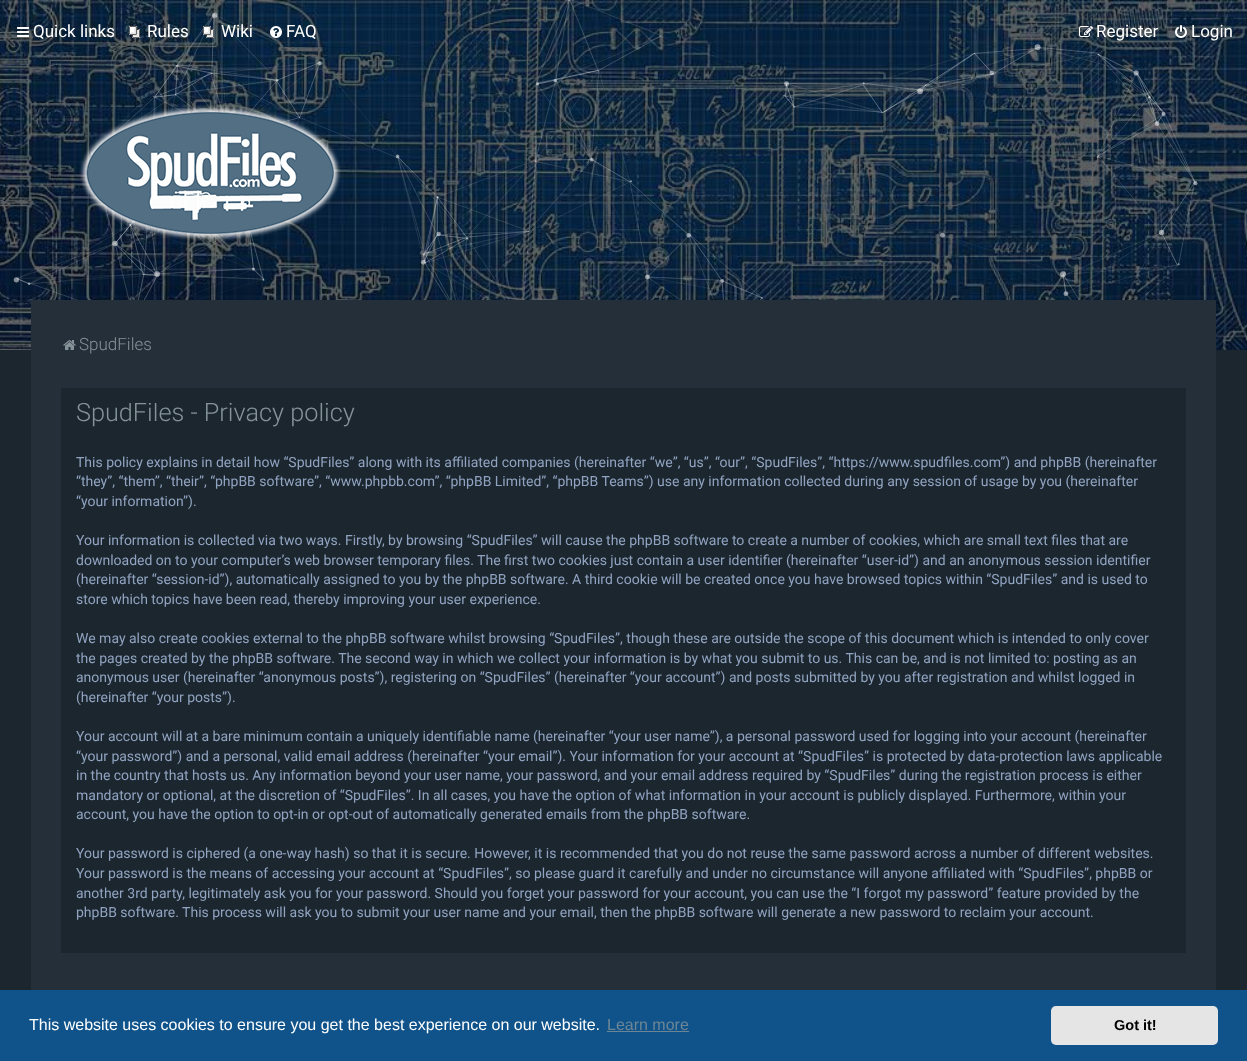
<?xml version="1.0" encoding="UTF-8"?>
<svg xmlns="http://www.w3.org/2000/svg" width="1247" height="1061">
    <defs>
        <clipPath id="clip1"><rect x="76" y="403" width="1095" height="535"/></clipPath>
    </defs>
    <rect width="100%" height="100%" fill="#1C262F"/>
    <image x="0" y="0" width="1247" height="350" href="img_01.png"/>
    <image x="13" y="0" width="1185" height="300" href="img_02.png"/>
    <image x="79" y="105" width="262" height="136" href="img_03.png"/>
    <image x="17" y="27" width="12" height="10" href="img_04.png"/>
    <text x="33" y="37" font-family="Roboto" font-size="17" fill="#FFFFFF">Quick links</text>
    <image x="129" y="26" width="11" height="12" href="img_05.png"/>
    <text x="147" y="37" font-family="Roboto" font-size="17" fill="#FFFFFF">Rules</text>
    <image x="203" y="26" width="11" height="12" href="img_06.png"/>
    <text x="221" y="37" font-family="Roboto" font-size="17" fill="#FFFFFF">Wiki</text>
    <image x="270" y="26" width="12" height="12" href="img_07.png"/>
    <text x="286" y="37" font-family="Roboto" font-size="17" fill="#FFFFFF">FAQ</text>
    <image x="1079" y="26" width="14" height="11" href="img_08.png"/>
    <text x="1096" y="37" font-family="Roboto" font-size="17" fill="#FFFFFF">Register</text>
    <image x="1175" y="25" width="12" height="13" href="img_09.png"/>
    <text x="1191" y="37" font-family="Roboto" font-size="17" fill="#FFFFFF">Login</text>
    <rect x="31" y="300" width="1185" height="690" fill="#252F39"/>
    <image x="63" y="340" width="13" height="10" href="img_10.png"/>
    <text x="79" y="350" font-family="Roboto" font-size="17" font-weight="300" fill="#859398">SpudFiles</text>
    <rect x="61" y="388" width="1125" height="565" fill="#1C262F"/>
    <g clip-path="url(#clip1)">
        <text x="76" y="421" font-family="Roboto" font-size="25.25" font-weight="300" fill="#859398">SpudFiles - Privacy policy</text>
    </g>
    <text font-family="Roboto" font-size="14" fill="#90A3C0">
        <tspan x="76" y="467">This policy explains in detail how “SpudFiles” along with its affiliated companies (hereinafter “we”, “us”, “our”, “SpudFiles”, “https://www.spudfiles.com”) and phpBB (hereinafter</tspan>
        <tspan x="76" y="486">“they”, “them”, “their”, “phpBB software”, “www.phpbb.com”, “phpBB Limited”, “phpBB Teams”) use any information collected during any session of usage by you (hereinafter</tspan>
        <tspan x="76" y="506">“your information”).</tspan>
    </text>
    <text font-family="Roboto" font-size="14" fill="#90A3C0">
        <tspan x="76" y="545">Your information is collected via two ways. Firstly, by browsing “SpudFiles” will cause the phpBB software to create a number of cookies, which are small text files that are</tspan>
        <tspan x="76" y="565">downloaded on to your computer’s web browser temporary files. The first two cookies just contain a user identifier (hereinafter “user-id”) and an anonymous session identifier</tspan>
        <tspan x="76" y="584">(hereinafter “session-id”), automatically assigned to you by the phpBB software. A third cookie will be created once you have browsed topics within “SpudFiles” and is used to</tspan>
        <tspan x="76" y="604">store which topics have been read, thereby improving your user experience.</tspan>
    </text>
    <text font-family="Roboto" font-size="14" fill="#90A3C0">
        <tspan x="76" y="643">We may also create cookies external to the phpBB software whilst browsing “SpudFiles”, though these are outside the scope of this document which is intended to only cover</tspan>
        <tspan x="76" y="663">the pages created by the phpBB software. The second way in which we collect your information is by what you submit to us. This can be, and is not limited to: posting as an</tspan>
        <tspan x="76" y="682">anonymous user (hereinafter “anonymous posts”), registering on “SpudFiles” (hereinafter “your account”) and posts submitted by you after registration and whilst logged in</tspan>
        <tspan x="76" y="702">(hereinafter “your posts”).</tspan>
    </text>
    <text font-family="Roboto" font-size="14" fill="#90A3C0">
        <tspan x="76" y="741">Your account will at a bare minimum contain a uniquely identifiable name (hereinafter “your user name”), a personal password used for logging into your account (hereinafter</tspan>
        <tspan x="76" y="761">“your password”) and a personal, valid email address (hereinafter “your email”). Your information for your account at “SpudFiles” is protected by data-protection laws applicable</tspan>
        <tspan x="76" y="780">in the country that hosts us. Any information beyond your user name, your password, and your email address required by “SpudFiles” during the registration process is either</tspan>
        <tspan x="76" y="800">mandatory or optional, at the discretion of “SpudFiles”. In all cases, you have the option of what information in your account is publicly displayed. Furthermore, within your</tspan>
        <tspan x="76" y="819">account, you have the option to opt-in or opt-out of automatically generated emails from the phpBB software.</tspan>
    </text>
    <text font-family="Roboto" font-size="14" fill="#90A3C0">
        <tspan x="76" y="858">Your password is ciphered (a one-way hash) so that it is secure. However, it is recommended that you do not reuse the same password across a number of different websites.</tspan>
        <tspan x="76" y="878">Your password is the means of accessing your account at “SpudFiles”, so please guard it carefully and under no circumstance will anyone affiliated with “SpudFiles”, phpBB or</tspan>
        <tspan x="76" y="898">another 3rd party, legitimately ask you for your password. Should you forget your password for your account, you can use the “I forgot my password” feature provided by the</tspan>
        <tspan x="76" y="917">phpBB software. This process will ask you to submit your user name and your email, then the phpBB software will generate a new password to reclaim your account.</tspan>
    </text>
    <rect x="0" y="990" width="1247" height="71" fill="#0F538A"/>
    <text x="29" y="1030" font-family="Liberation Sans" font-size="16" fill="#FFFFFF">This website uses cookies to ensure you get the best experience on our website.</text>
    <text x="607" y="1030" font-family="Liberation Sans" font-size="16" fill="#6D8695">Learn more</text>
    <rect x="607" y="1031" width="82" height="1" fill="#6D8695"/>
    <rect x="1051" y="1006" width="167" height="39" rx="5" fill="#E5E5E5"/>
    <text x="1114" y="1030" font-family="Liberation Sans" font-size="14.5" font-weight="700" fill="#000000">Got it!</text>
</svg>
